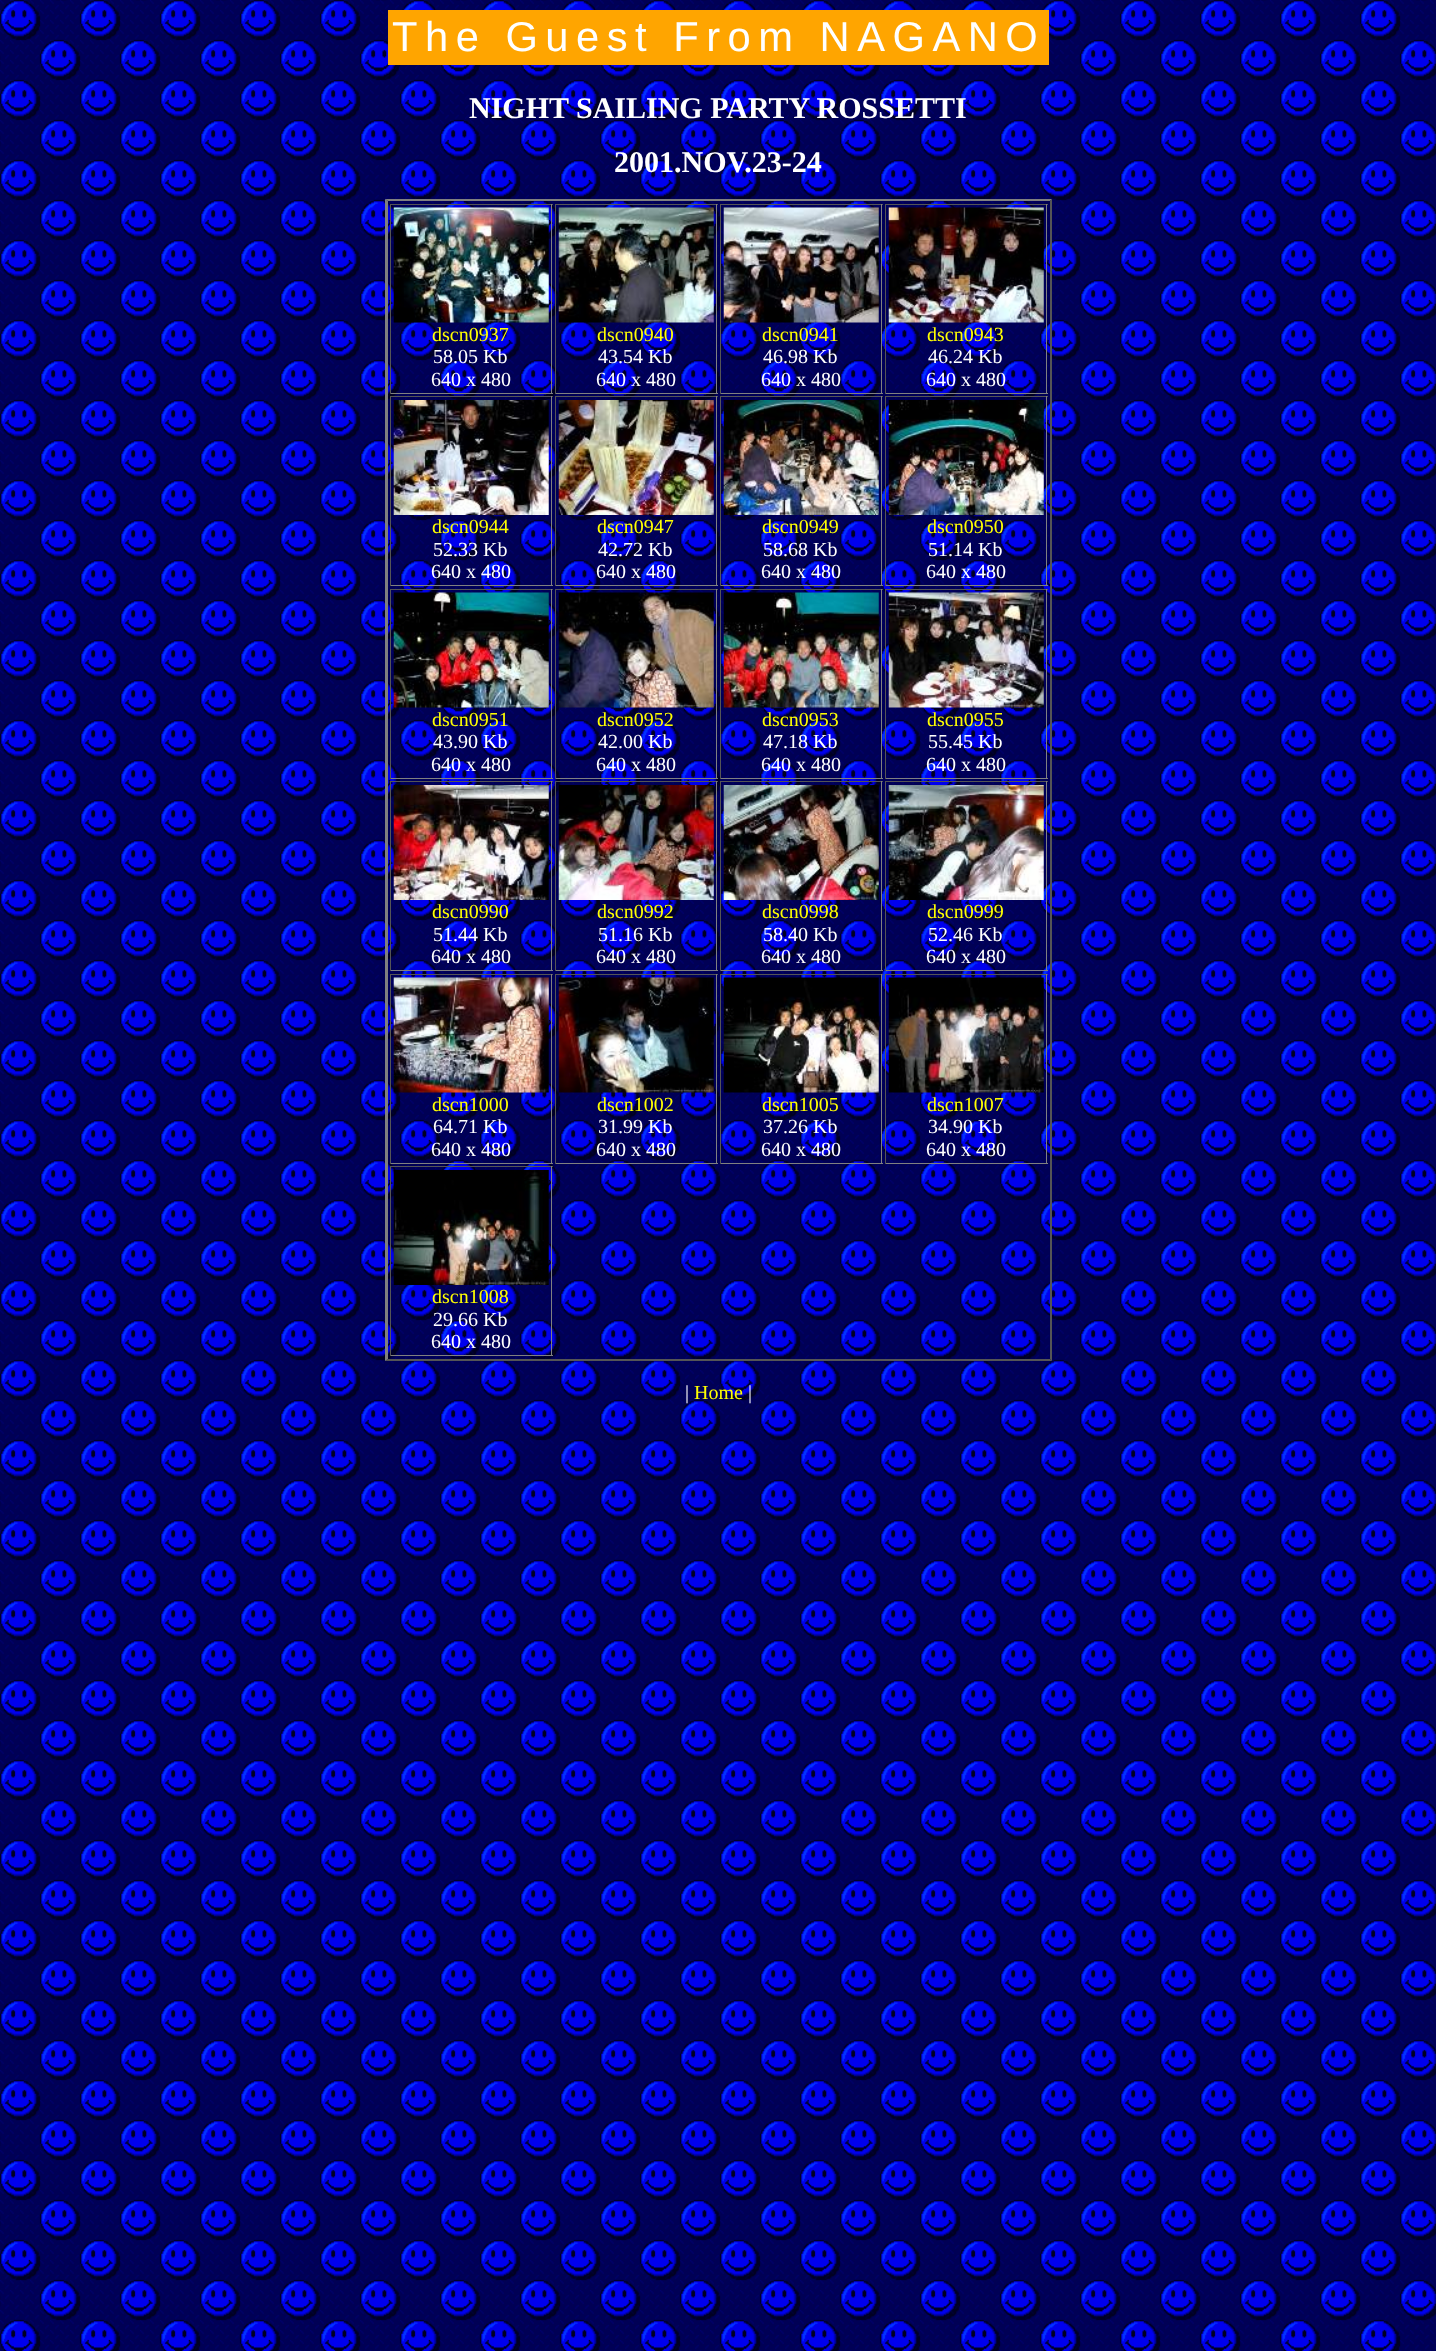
<?xml version="1.0" encoding="UTF-8"?>
<svg xmlns="http://www.w3.org/2000/svg" width="1436" height="2351">
    <rect width="100%" height="100%" fill="#FFFFFF"/>
    <image x="0" y="0" width="1436" height="2351" href="img_01.png"/>
    <rect x="388" y="10" width="661" height="55" fill="#FFA500"/>
    <text x="392" y="51" font-family="Liberation Sans" font-size="41.7" letter-spacing="7.5" fill="#FFFFFF">The Guest From NAGANO</text>
    <text x="469" y="118" font-family="Liberation Serif" font-size="30" font-weight="700" fill="#FFFFFF">NIGHT SAILING PARTY ROSSETTI</text>
    <text x="614" y="172" font-family="Liberation Serif" font-size="30" font-weight="700" fill="#FFFFFF">2001.NOV.23-24</text>
    <path d="M 385 199 H 1052 L 1050 201 H 388 Z" fill="#808080"/>
    <path d="M 1052 199 V 1361 L 1050 1359 V 201 Z" fill="#555555"/>
    <path d="M 1052 1361 H 385 L 388 1359 H 1050 Z" fill="#555555"/>
    <path d="M 385 1361 V 199 L 388 201 V 1359 Z" fill="#808080"/>
    <rect x="390" y="204" width="163" height="1" fill="#555555"/>
    <rect x="551" y="204" width="1" height="190" fill="#808080"/>
    <rect x="390" y="393" width="163" height="1" fill="#808080"/>
    <rect x="390" y="204" width="1" height="190" fill="#555555"/>
    <image x="393" y="207" width="156" height="116" href="img_02.png"/>
    <text x="432" y="341" font-family="Liberation Serif" font-size="20" fill="#FFFF00">dscn0937</text>
    <text x="433" y="363" font-family="Liberation Serif" font-size="20" fill="#FFFFFF">58.05 Kb</text>
    <text x="431" y="386" font-family="Liberation Serif" font-size="20" fill="#FFFFFF">640 x 480</text>
    <rect x="555" y="204" width="163" height="1" fill="#555555"/>
    <rect x="716" y="204" width="1" height="190" fill="#808080"/>
    <rect x="555" y="393" width="163" height="1" fill="#808080"/>
    <rect x="555" y="204" width="1" height="190" fill="#555555"/>
    <image x="558" y="207" width="156" height="116" href="img_03.png"/>
    <text x="597" y="341" font-family="Liberation Serif" font-size="20" fill="#FFFF00">dscn0940</text>
    <text x="598" y="363" font-family="Liberation Serif" font-size="20" fill="#FFFFFF">43.54 Kb</text>
    <text x="596" y="386" font-family="Liberation Serif" font-size="20" fill="#FFFFFF">640 x 480</text>
    <rect x="720" y="204" width="163" height="1" fill="#555555"/>
    <rect x="881" y="204" width="1" height="190" fill="#808080"/>
    <rect x="720" y="393" width="163" height="1" fill="#808080"/>
    <rect x="720" y="204" width="1" height="190" fill="#555555"/>
    <image x="723" y="207" width="156" height="116" href="img_04.png"/>
    <text x="762" y="341" font-family="Liberation Serif" font-size="20" fill="#FFFF00">dscn0941</text>
    <text x="763" y="363" font-family="Liberation Serif" font-size="20" fill="#FFFFFF">46.98 Kb</text>
    <text x="761" y="386" font-family="Liberation Serif" font-size="20" fill="#FFFFFF">640 x 480</text>
    <rect x="885" y="204" width="163" height="1" fill="#555555"/>
    <rect x="1046" y="204" width="1" height="190" fill="#808080"/>
    <rect x="885" y="393" width="163" height="1" fill="#808080"/>
    <rect x="885" y="204" width="1" height="190" fill="#555555"/>
    <image x="888" y="207" width="156" height="116" href="img_05.png"/>
    <text x="927" y="341" font-family="Liberation Serif" font-size="20" fill="#FFFF00">dscn0943</text>
    <text x="928" y="363" font-family="Liberation Serif" font-size="20" fill="#FFFFFF">46.24 Kb</text>
    <text x="926" y="386" font-family="Liberation Serif" font-size="20" fill="#FFFFFF">640 x 480</text>
    <rect x="390" y="396" width="163" height="1" fill="#555555"/>
    <rect x="551" y="396" width="1" height="190" fill="#808080"/>
    <rect x="390" y="585" width="163" height="1" fill="#808080"/>
    <rect x="390" y="396" width="1" height="190" fill="#555555"/>
    <image x="393" y="400" width="156" height="115" href="img_06.png"/>
    <text x="432" y="533" font-family="Liberation Serif" font-size="20" fill="#FFFF00">dscn0944</text>
    <text x="433" y="556" font-family="Liberation Serif" font-size="20" fill="#FFFFFF">52.33 Kb</text>
    <text x="431" y="578" font-family="Liberation Serif" font-size="20" fill="#FFFFFF">640 x 480</text>
    <rect x="555" y="396" width="163" height="1" fill="#555555"/>
    <rect x="716" y="396" width="1" height="190" fill="#808080"/>
    <rect x="555" y="585" width="163" height="1" fill="#808080"/>
    <rect x="555" y="396" width="1" height="190" fill="#555555"/>
    <image x="558" y="400" width="156" height="115" href="img_07.png"/>
    <text x="597" y="533" font-family="Liberation Serif" font-size="20" fill="#FFFF00">dscn0947</text>
    <text x="598" y="556" font-family="Liberation Serif" font-size="20" fill="#FFFFFF">42.72 Kb</text>
    <text x="596" y="578" font-family="Liberation Serif" font-size="20" fill="#FFFFFF">640 x 480</text>
    <rect x="720" y="396" width="163" height="1" fill="#555555"/>
    <rect x="881" y="396" width="1" height="190" fill="#808080"/>
    <rect x="720" y="585" width="163" height="1" fill="#808080"/>
    <rect x="720" y="396" width="1" height="190" fill="#555555"/>
    <image x="723" y="400" width="156" height="115" href="img_08.png"/>
    <text x="762" y="533" font-family="Liberation Serif" font-size="20" fill="#FFFF00">dscn0949</text>
    <text x="763" y="556" font-family="Liberation Serif" font-size="20" fill="#FFFFFF">58.68 Kb</text>
    <text x="761" y="578" font-family="Liberation Serif" font-size="20" fill="#FFFFFF">640 x 480</text>
    <rect x="885" y="396" width="163" height="1" fill="#555555"/>
    <rect x="1046" y="396" width="1" height="190" fill="#808080"/>
    <rect x="885" y="585" width="163" height="1" fill="#808080"/>
    <rect x="885" y="396" width="1" height="190" fill="#555555"/>
    <image x="888" y="400" width="156" height="115" href="img_09.png"/>
    <text x="927" y="533" font-family="Liberation Serif" font-size="20" fill="#FFFF00">dscn0950</text>
    <text x="928" y="556" font-family="Liberation Serif" font-size="20" fill="#FFFFFF">51.14 Kb</text>
    <text x="926" y="578" font-family="Liberation Serif" font-size="20" fill="#FFFFFF">640 x 480</text>
    <rect x="390" y="589" width="163" height="1" fill="#555555"/>
    <rect x="551" y="589" width="1" height="190" fill="#808080"/>
    <rect x="390" y="778" width="163" height="1" fill="#808080"/>
    <rect x="390" y="589" width="1" height="190" fill="#555555"/>
    <image x="393" y="592" width="156" height="116" href="img_10.png"/>
    <text x="432" y="726" font-family="Liberation Serif" font-size="20" fill="#FFFF00">dscn0951</text>
    <text x="433" y="748" font-family="Liberation Serif" font-size="20" fill="#FFFFFF">43.90 Kb</text>
    <text x="431" y="771" font-family="Liberation Serif" font-size="20" fill="#FFFFFF">640 x 480</text>
    <rect x="555" y="589" width="163" height="1" fill="#555555"/>
    <rect x="716" y="589" width="1" height="190" fill="#808080"/>
    <rect x="555" y="778" width="163" height="1" fill="#808080"/>
    <rect x="555" y="589" width="1" height="190" fill="#555555"/>
    <image x="558" y="592" width="156" height="116" href="img_11.png"/>
    <text x="597" y="726" font-family="Liberation Serif" font-size="20" fill="#FFFF00">dscn0952</text>
    <text x="598" y="748" font-family="Liberation Serif" font-size="20" fill="#FFFFFF">42.00 Kb</text>
    <text x="596" y="771" font-family="Liberation Serif" font-size="20" fill="#FFFFFF">640 x 480</text>
    <rect x="720" y="589" width="163" height="1" fill="#555555"/>
    <rect x="881" y="589" width="1" height="190" fill="#808080"/>
    <rect x="720" y="778" width="163" height="1" fill="#808080"/>
    <rect x="720" y="589" width="1" height="190" fill="#555555"/>
    <image x="723" y="592" width="156" height="116" href="img_12.png"/>
    <text x="762" y="726" font-family="Liberation Serif" font-size="20" fill="#FFFF00">dscn0953</text>
    <text x="763" y="748" font-family="Liberation Serif" font-size="20" fill="#FFFFFF">47.18 Kb</text>
    <text x="761" y="771" font-family="Liberation Serif" font-size="20" fill="#FFFFFF">640 x 480</text>
    <rect x="885" y="589" width="163" height="1" fill="#555555"/>
    <rect x="1046" y="589" width="1" height="190" fill="#808080"/>
    <rect x="885" y="778" width="163" height="1" fill="#808080"/>
    <rect x="885" y="589" width="1" height="190" fill="#555555"/>
    <image x="888" y="592" width="156" height="116" href="img_13.png"/>
    <text x="927" y="726" font-family="Liberation Serif" font-size="20" fill="#FFFF00">dscn0955</text>
    <text x="928" y="748" font-family="Liberation Serif" font-size="20" fill="#FFFFFF">55.45 Kb</text>
    <text x="926" y="771" font-family="Liberation Serif" font-size="20" fill="#FFFFFF">640 x 480</text>
    <rect x="390" y="781" width="163" height="1" fill="#555555"/>
    <rect x="551" y="781" width="1" height="190" fill="#808080"/>
    <rect x="390" y="970" width="163" height="1" fill="#808080"/>
    <rect x="390" y="781" width="1" height="190" fill="#555555"/>
    <image x="393" y="785" width="156" height="115" href="img_14.png"/>
    <text x="432" y="918" font-family="Liberation Serif" font-size="20" fill="#FFFF00">dscn0990</text>
    <text x="433" y="941" font-family="Liberation Serif" font-size="20" fill="#FFFFFF">51.44 Kb</text>
    <text x="431" y="963" font-family="Liberation Serif" font-size="20" fill="#FFFFFF">640 x 480</text>
    <rect x="555" y="781" width="163" height="1" fill="#555555"/>
    <rect x="716" y="781" width="1" height="190" fill="#808080"/>
    <rect x="555" y="970" width="163" height="1" fill="#808080"/>
    <rect x="555" y="781" width="1" height="190" fill="#555555"/>
    <image x="558" y="785" width="156" height="115" href="img_15.png"/>
    <text x="597" y="918" font-family="Liberation Serif" font-size="20" fill="#FFFF00">dscn0992</text>
    <text x="598" y="941" font-family="Liberation Serif" font-size="20" fill="#FFFFFF">51.16 Kb</text>
    <text x="596" y="963" font-family="Liberation Serif" font-size="20" fill="#FFFFFF">640 x 480</text>
    <rect x="720" y="781" width="163" height="1" fill="#555555"/>
    <rect x="881" y="781" width="1" height="190" fill="#808080"/>
    <rect x="720" y="970" width="163" height="1" fill="#808080"/>
    <rect x="720" y="781" width="1" height="190" fill="#555555"/>
    <image x="723" y="785" width="156" height="115" href="img_16.png"/>
    <text x="762" y="918" font-family="Liberation Serif" font-size="20" fill="#FFFF00">dscn0998</text>
    <text x="763" y="941" font-family="Liberation Serif" font-size="20" fill="#FFFFFF">58.40 Kb</text>
    <text x="761" y="963" font-family="Liberation Serif" font-size="20" fill="#FFFFFF">640 x 480</text>
    <rect x="885" y="781" width="163" height="1" fill="#555555"/>
    <rect x="1046" y="781" width="1" height="190" fill="#808080"/>
    <rect x="885" y="970" width="163" height="1" fill="#808080"/>
    <rect x="885" y="781" width="1" height="190" fill="#555555"/>
    <image x="888" y="785" width="156" height="115" href="img_17.png"/>
    <text x="927" y="918" font-family="Liberation Serif" font-size="20" fill="#FFFF00">dscn0999</text>
    <text x="928" y="941" font-family="Liberation Serif" font-size="20" fill="#FFFFFF">52.46 Kb</text>
    <text x="926" y="963" font-family="Liberation Serif" font-size="20" fill="#FFFFFF">640 x 480</text>
    <rect x="390" y="974" width="163" height="1" fill="#555555"/>
    <rect x="551" y="974" width="1" height="190" fill="#808080"/>
    <rect x="390" y="1163" width="163" height="1" fill="#808080"/>
    <rect x="390" y="974" width="1" height="190" fill="#555555"/>
    <image x="393" y="977" width="156" height="116" href="img_18.png"/>
    <text x="432" y="1111" font-family="Liberation Serif" font-size="20" fill="#FFFF00">dscn1000</text>
    <text x="433" y="1133" font-family="Liberation Serif" font-size="20" fill="#FFFFFF">64.71 Kb</text>
    <text x="431" y="1156" font-family="Liberation Serif" font-size="20" fill="#FFFFFF">640 x 480</text>
    <rect x="555" y="974" width="163" height="1" fill="#555555"/>
    <rect x="716" y="974" width="1" height="190" fill="#808080"/>
    <rect x="555" y="1163" width="163" height="1" fill="#808080"/>
    <rect x="555" y="974" width="1" height="190" fill="#555555"/>
    <image x="558" y="977" width="156" height="116" href="img_19.png"/>
    <text x="597" y="1111" font-family="Liberation Serif" font-size="20" fill="#FFFF00">dscn1002</text>
    <text x="598" y="1133" font-family="Liberation Serif" font-size="20" fill="#FFFFFF">31.99 Kb</text>
    <text x="596" y="1156" font-family="Liberation Serif" font-size="20" fill="#FFFFFF">640 x 480</text>
    <rect x="720" y="974" width="163" height="1" fill="#555555"/>
    <rect x="881" y="974" width="1" height="190" fill="#808080"/>
    <rect x="720" y="1163" width="163" height="1" fill="#808080"/>
    <rect x="720" y="974" width="1" height="190" fill="#555555"/>
    <image x="723" y="977" width="156" height="116" href="img_20.png"/>
    <text x="762" y="1111" font-family="Liberation Serif" font-size="20" fill="#FFFF00">dscn1005</text>
    <text x="763" y="1133" font-family="Liberation Serif" font-size="20" fill="#FFFFFF">37.26 Kb</text>
    <text x="761" y="1156" font-family="Liberation Serif" font-size="20" fill="#FFFFFF">640 x 480</text>
    <rect x="885" y="974" width="163" height="1" fill="#555555"/>
    <rect x="1046" y="974" width="1" height="190" fill="#808080"/>
    <rect x="885" y="1163" width="163" height="1" fill="#808080"/>
    <rect x="885" y="974" width="1" height="190" fill="#555555"/>
    <image x="888" y="977" width="156" height="116" href="img_21.png"/>
    <text x="927" y="1111" font-family="Liberation Serif" font-size="20" fill="#FFFF00">dscn1007</text>
    <text x="928" y="1133" font-family="Liberation Serif" font-size="20" fill="#FFFFFF">34.90 Kb</text>
    <text x="926" y="1156" font-family="Liberation Serif" font-size="20" fill="#FFFFFF">640 x 480</text>
    <rect x="390" y="1166" width="163" height="1" fill="#555555"/>
    <rect x="551" y="1166" width="1" height="190" fill="#808080"/>
    <rect x="390" y="1355" width="163" height="1" fill="#808080"/>
    <rect x="390" y="1166" width="1" height="190" fill="#555555"/>
    <image x="393" y="1170" width="156" height="115" href="img_22.png"/>
    <text x="432" y="1303" font-family="Liberation Serif" font-size="20" fill="#FFFF00">dscn1008</text>
    <text x="433" y="1326" font-family="Liberation Serif" font-size="20" fill="#FFFFFF">29.66 Kb</text>
    <text x="431" y="1348" font-family="Liberation Serif" font-size="20" fill="#FFFFFF">640 x 480</text>
    <text x="685" y="1399" font-family="Liberation Serif" font-size="20" fill="#FFFFFF">|</text>
    <text x="694" y="1399" font-family="Liberation Serif" font-size="20" fill="#FFFF00">Home</text>
    <text x="748" y="1399" font-family="Liberation Serif" font-size="20" fill="#FFFFFF">|</text>
</svg>
